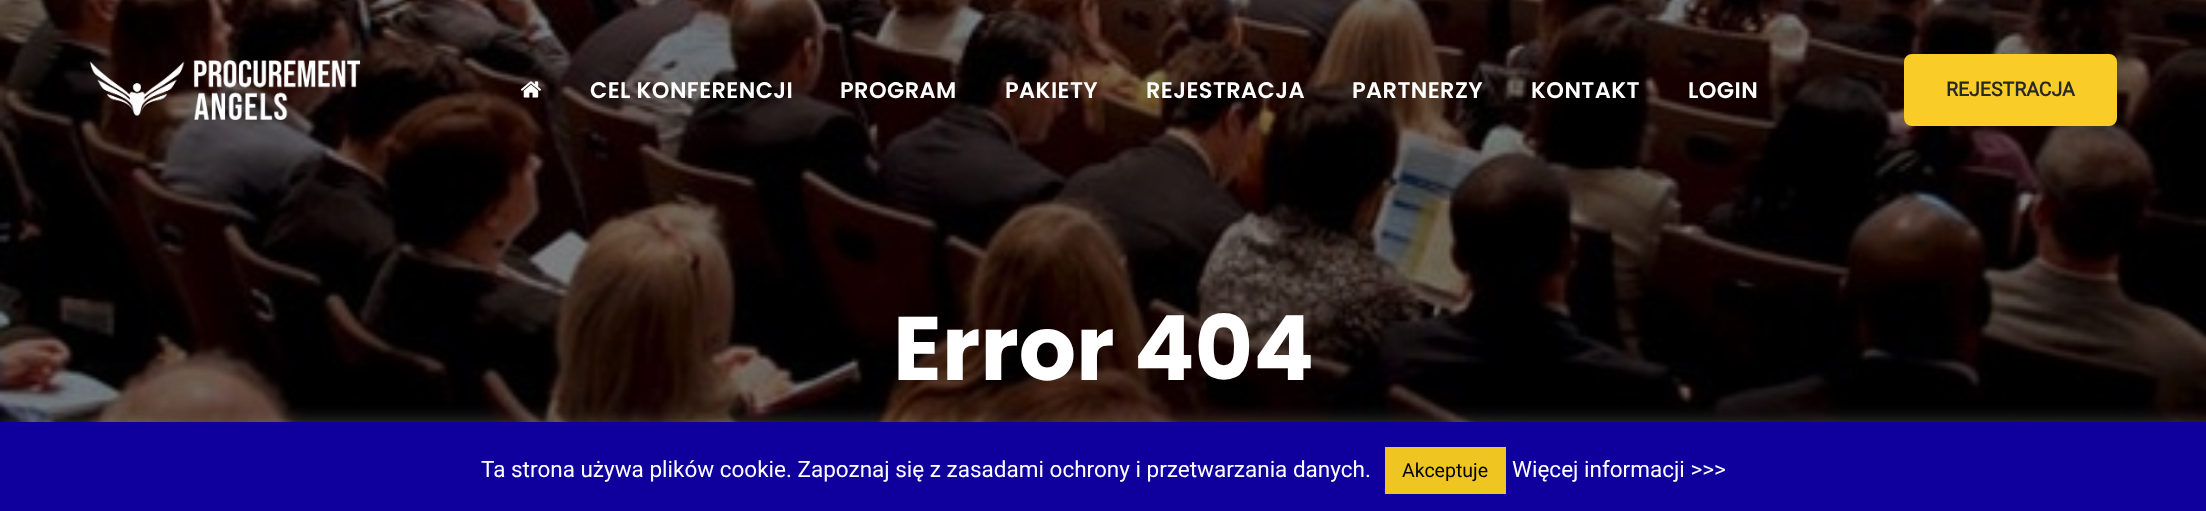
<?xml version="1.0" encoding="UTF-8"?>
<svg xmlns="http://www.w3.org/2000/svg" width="2206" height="511">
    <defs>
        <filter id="blur1" x="-50%" y="-200%" width="200%" height="500%"><feGaussianBlur stdDeviation="7.5"/></filter>
    </defs>
    <rect width="100%" height="100%" fill="#FFFFFF"/>
    <image x="0" y="0" width="2206" height="422" href="img_03.png"/>
    <image x="90" y="60" width="270" height="60" href="img_01.png"/>
    <image x="520" y="81" width="21" height="17" href="img_02.png"/>
    <text x="590" y="98" font-family="Poppins" font-size="22.5" font-weight="600" letter-spacing="0.4" fill="#FFFFFF">CEL KONFERENCJI</text>
    <text x="840" y="98" font-family="Poppins" font-size="22.5" font-weight="600" letter-spacing="0.4" fill="#FFFFFF">PROGRAM</text>
    <text x="1005" y="98" font-family="Poppins" font-size="22.5" font-weight="600" letter-spacing="0.4" fill="#FFFFFF">PAKIETY</text>
    <text x="1146" y="98" font-family="Poppins" font-size="22.5" font-weight="600" letter-spacing="0.4" fill="#FFFFFF">REJESTRACJA</text>
    <text x="1352" y="98" font-family="Poppins" font-size="22.5" font-weight="600" letter-spacing="0.4" fill="#FFFFFF">PARTNERZY</text>
    <text x="1531" y="98" font-family="Poppins" font-size="22.5" font-weight="600" letter-spacing="0.4" fill="#FFFFFF">KONTAKT</text>
    <text x="1688" y="98" font-family="Poppins" font-size="22.5" font-weight="600" letter-spacing="0.4" fill="#FFFFFF">LOGIN</text>
    <rect x="1905.5" y="55.5" width="210" height="69" rx="6.5" fill="#F9CC27" stroke="#F9CC27" stroke-width="3"/>
    <text x="1946" y="96" font-family="Roboto" font-size="19.5" font-weight="700" fill="#282828">REJESTRACJA</text>
    <text x="893" y="380" font-family="Poppins" font-size="90" font-weight="700" fill="#FFFFFF">Error 404</text>
    <rect x="0" y="420" width="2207" height="90" fill="#ACABAB" fill-opacity="0.3" filter="url(#blur1)"/>
    <rect x="0" y="422" width="2206" height="89" fill="#0F009E"/>
    <text x="481" y="477" font-family="Roboto" font-size="22.5" fill="#FFFFFF">Ta strona używa plików cookie. Zapoznaj się z zasadami ochrony i przetwarzania danych.</text>
    <rect x="1385" y="447" width="121" height="47" fill="#EFC621"/>
    <text x="1402" y="477" font-family="Roboto" font-size="19.5" fill="#000000">Akceptuje</text>
    <text x="1512" y="477" font-family="Roboto" font-size="22.5" fill="#FFFFFF">Więcej informacji &gt;&gt;&gt;</text>
</svg>
